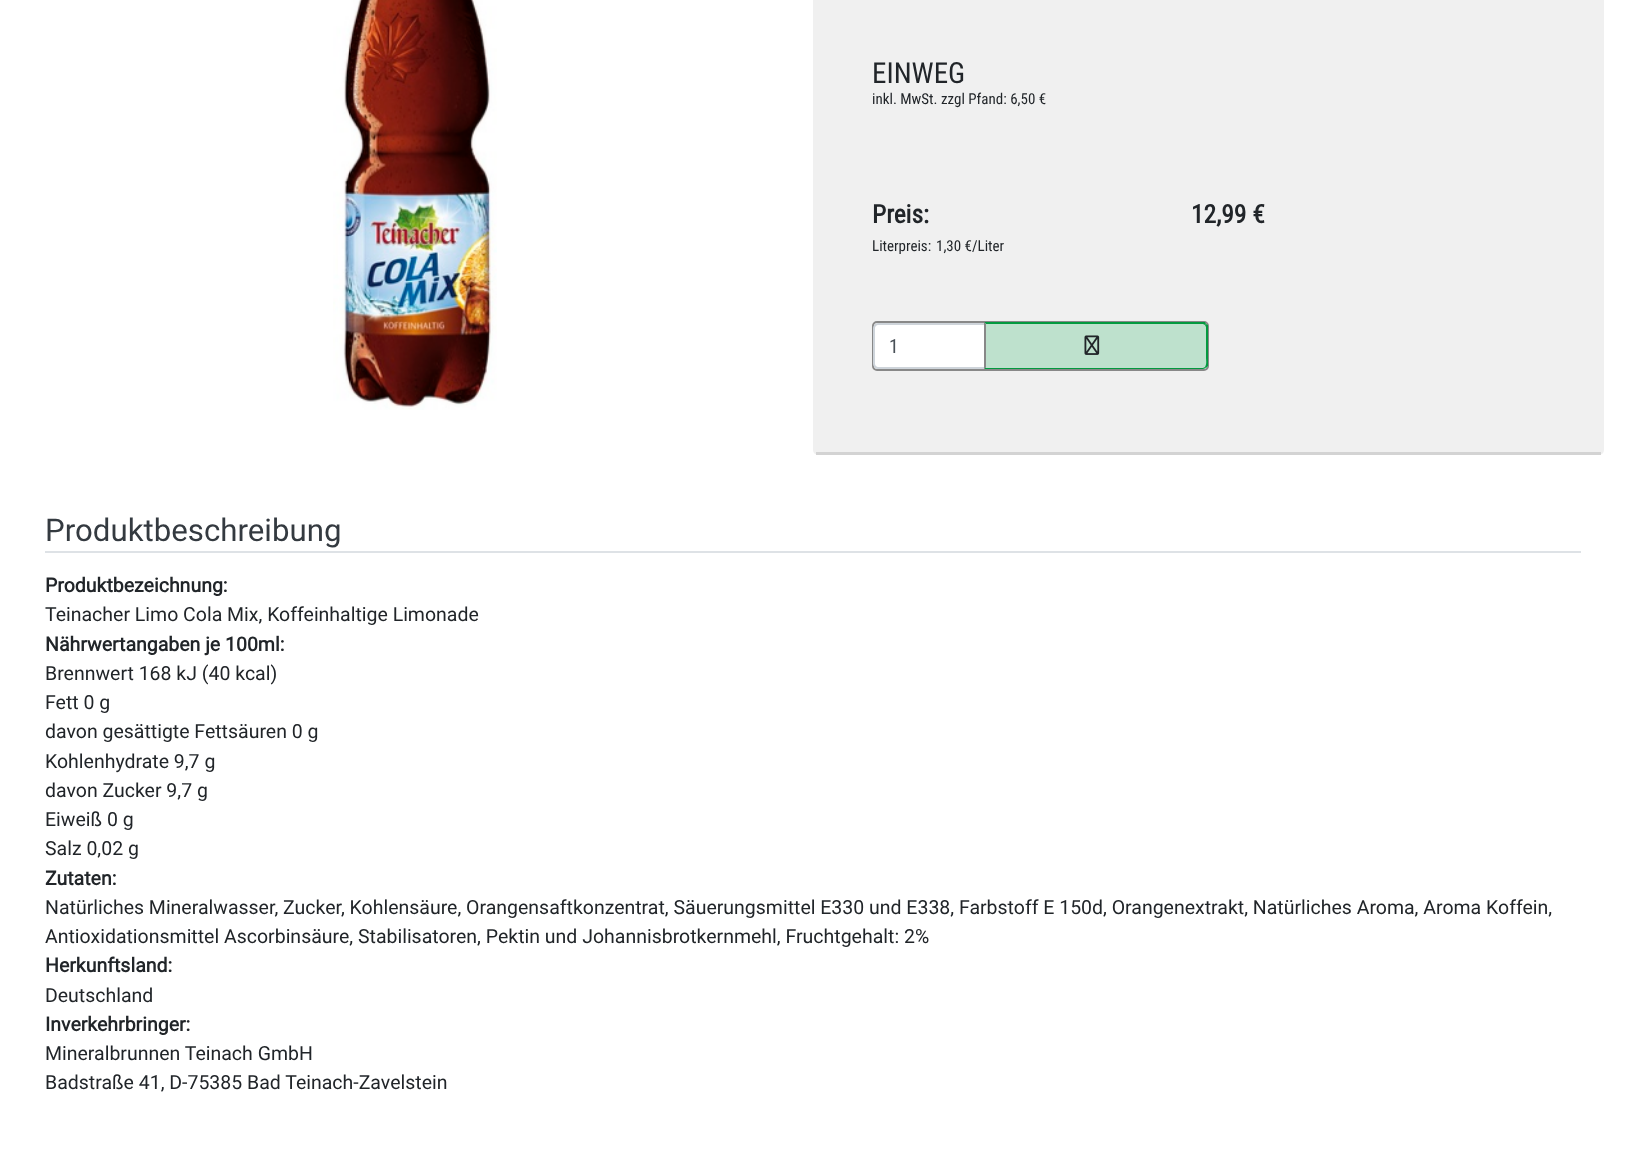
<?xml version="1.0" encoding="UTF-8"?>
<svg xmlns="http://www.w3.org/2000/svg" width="1626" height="1152">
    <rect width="100%" height="100%" fill="#FFFFFF"/>
    <image x="333" y="0" width="164" height="410" href="img_01.png"/>
    <rect x="813" y="-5" width="791" height="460" rx="5" fill="#F0F0F0"/>
    <rect x="816" y="452" width="785" height="3" fill="#D3D3D3"/>
    <text x="872" y="83" font-family="Roboto Condensed" font-size="29" fill="#212529">EINWEG</text>
    <text x="872" y="104" font-family="Roboto Condensed" font-size="15" fill="#212529">inkl. MwSt. zzgl Pfand: 6,50 €</text>
    <text x="872" y="223" font-family="Roboto Condensed" font-size="25.5" font-weight="700" fill="#212529">Preis:</text>
    <text x="1191" y="223" font-family="Roboto Condensed" font-size="25.5" font-weight="700" fill="#212529">12,99 €</text>
    <text x="872" y="251" font-family="Roboto Condensed" font-size="15" fill="#212529">Literpreis:</text>
    <text x="936" y="251" font-family="Roboto Condensed" font-size="15" fill="#212529">1,30 €/Liter</text>
    <rect x="873" y="322" width="335" height="48" rx="4" fill="none" stroke="#888888" stroke-width="2"/>
    <path d="M 878 324 H 985 V 368 H 878 C 876 368 874 366 874 364 V 328 C 874 326 876 324 878 324 Z" fill="#FFFFFF" stroke="#CED4DA" stroke-width="2"/>
    <text x="889" y="353" font-family="Roboto Condensed" font-size="19.5" fill="#495057">1</text>
    <path d="M 984 323 H 1203 C 1206 323 1208 325 1208 328 V 364 C 1208 367 1206 369 1203 369 H 984 Z" fill="#BEE1CD"/>
    <path d="M 986 324 L 984 322 H 1205 L 1206 324 L 1205 325 L 1203 324 Z" fill="#03993F"/>
    <path d="M 1208 366 L 1206 368 L 1205 367 C 1207 364 1206 360 1206 358 V 327 L 1205 325 L 1206 324 L 1208 325 Z" fill="#03993F"/>
    <path d="M 1203 369 L 1206 368 L 1205 367 L 1203 368 H 986 V 367 L 984 369 Z" fill="#03993F"/>
    <path d="M 984 369 L 986 367 V 324 L 984 322 Z" fill="#888888"/>
    <image x="1084" y="335" width="16" height="20" href="img_02.png"/>
    <rect x="45" y="551" width="1536" height="2" fill="#DEE2E6"/>
    <text x="45" y="541" font-family="Roboto" font-size="31.25" fill="#343A40">Produktbeschreibung</text>
    <text x="45" y="592" font-family="Roboto" font-size="19.5" font-weight="700" fill="#212529">Produktbezeichnung:</text>
    <text x="45" y="621" font-family="Roboto" font-size="19.5" fill="#212529">Teinacher Limo Cola Mix, Koffeinhaltige Limonade</text>
    <text x="45" y="651" font-family="Roboto" font-size="19.5" font-weight="700" fill="#212529">Nährwertangaben je 100ml:</text>
    <text font-family="Roboto" font-size="19.5" fill="#212529">
        <tspan x="45" y="680">Brennwert 168 kJ (40 kcal)</tspan>
        <tspan x="45" y="709">Fett 0 g</tspan>
        <tspan x="45" y="738">davon gesättigte Fettsäuren 0 g</tspan>
        <tspan x="45" y="768">Kohlenhydrate 9,7 g</tspan>
        <tspan x="45" y="797">davon Zucker 9,7 g</tspan>
        <tspan x="45" y="826">Eiweiß 0 g</tspan>
        <tspan x="45" y="855">Salz 0,02 g</tspan>
    </text>
    <text x="45" y="885" font-family="Roboto" font-size="19.5" font-weight="700" fill="#212529">Zutaten:</text>
    <text font-family="Roboto" font-size="19.5" fill="#212529">
        <tspan x="45" y="914">Natürliches Mineralwasser, Zucker, Kohlensäure, Orangensaftkonzentrat, Säuerungsmittel E330 und E338, Farbstoff E 150d, Orangenextrakt, Natürliches Aroma, Aroma Koffein,</tspan>
        <tspan x="45" y="943">Antioxidationsmittel Ascorbinsäure, Stabilisatoren, Pektin und Johannisbrotkernmehl, Fruchtgehalt: 2%</tspan>
    </text>
    <text x="45" y="972" font-family="Roboto" font-size="19.5" font-weight="700" fill="#212529">Herkunftsland:</text>
    <text x="45" y="1002" font-family="Roboto" font-size="19.5" fill="#212529">Deutschland</text>
    <text x="45" y="1031" font-family="Roboto" font-size="19.5" font-weight="700" fill="#212529">Inverkehrbringer:</text>
    <text font-family="Roboto" font-size="19.5" fill="#212529">
        <tspan x="45" y="1060">Mineralbrunnen Teinach GmbH</tspan>
        <tspan x="45" y="1089">Badstraße 41, D-75385 Bad Teinach-Zavelstein</tspan>
    </text>
</svg>
